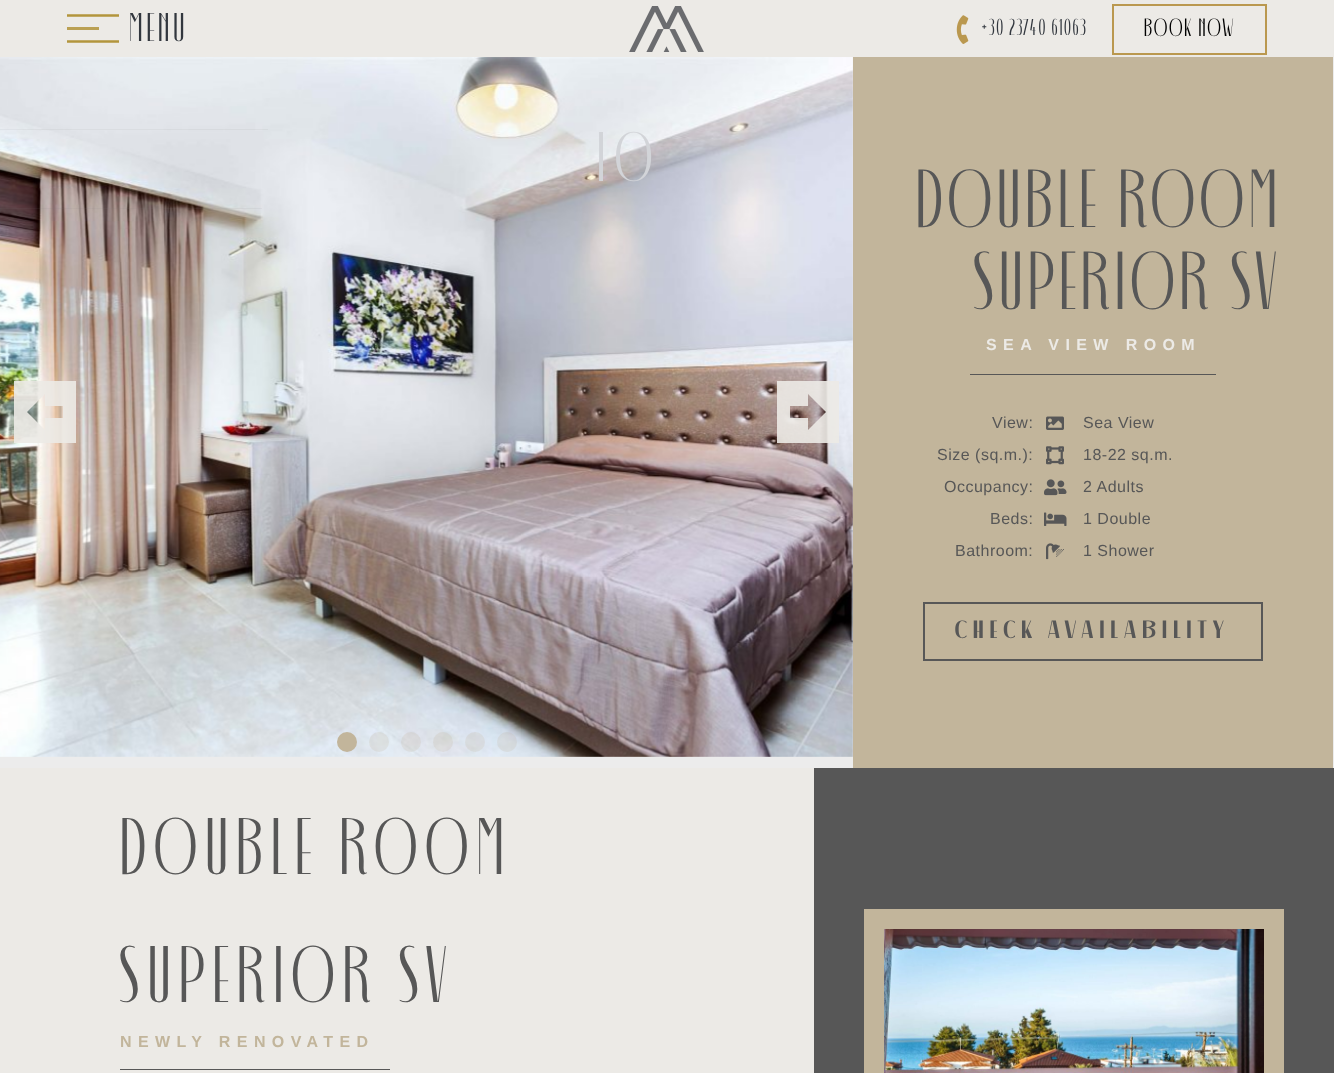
<?xml version="1.0" encoding="UTF-8"?>
<svg xmlns="http://www.w3.org/2000/svg" width="1334" height="1073">
    <defs>
        <clipPath id="clip1"><rect x="67" y="3" width="52" height="52"/></clipPath>
    </defs>
    <rect width="100%" height="100%" fill="#ECEAE6"/>
    <rect x="67" y="27" width="32" height="3" fill="#BAA053"/>
    <g clip-path="url(#clip1)">
        <path d="M 120.5 15.5 V 41.5 H 65 V 15.5 Z" fill="none" stroke="#B2953C" stroke-width="2.6"/>
    </g>
    <text x="129" y="41" font-family="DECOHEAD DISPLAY" font-size="40" font-weight="300" letter-spacing="4" fill="#32373E">MENU</text>
    <image x="629" y="6" width="75" height="46" href="img_01.png"/>
    <image x="956" y="15" width="13" height="29" href="img_02.png"/>
    <text x="982" y="35" font-family="DECOHEAD DISPLAY" font-size="23" font-weight="300" letter-spacing="1.5" fill="#32373E">+30 23740 61063</text>
    <rect x="1113" y="5" width="153" height="49" fill="none" stroke="#BA984F" stroke-width="2"/>
    <text x="1144" y="36" font-family="DECOHEAD DISPLAY" font-size="25" font-weight="300" letter-spacing="2" fill="#000000">BOOK NOW</text>
    <rect x="0" y="57" width="1334" height="711" fill="#ECECEC"/>
    <image x="0" y="57" width="853" height="700" href="img_03.png"/>
    <path d="M 63 418 H 45 V 406 H 63 Z M 45 430 L 27 412 L 45 394 Z M 14 443 H 76 V 381 H 14 Z" fill="#ECEAE6" fill-opacity="0.9" fill-rule="evenodd"/>
    <path d="M 777 443 H 839 V 381 H 777 Z M 790 418 H 808 V 406 H 790 Z M 808 430 L 826 412 L 808 394 Z" fill="#ECEAE6" fill-opacity="0.9" fill-rule="evenodd"/>
    <circle cx="347" cy="742" r="10" fill="#C2B59B"/>
    <circle cx="379" cy="742" r="10" fill="#C2B59B" fill-opacity="0.2"/>
    <circle cx="411" cy="742" r="10" fill="#C2B59B" fill-opacity="0.2"/>
    <circle cx="443" cy="742" r="10" fill="#C2B59B" fill-opacity="0.2"/>
    <circle cx="475" cy="742" r="10" fill="#C2B59B" fill-opacity="0.2"/>
    <circle cx="507" cy="742" r="10" fill="#C2B59B" fill-opacity="0.2"/>
    <rect x="0" y="129" width="268" height="1" fill="#7A7A7A" fill-opacity="0.08"/>
    <text x="597" y="181" font-family="DECOHEAD DISPLAY" font-size="70" font-weight="300" letter-spacing="10" fill="#D2D4D8">IO</text>
    <rect x="0" y="208" width="262" height="1" fill="#7A7A7A" fill-opacity="0.08"/>
    <rect x="853" y="57" width="480" height="711" fill="#C2B59B"/>
    <text x="916" y="227" font-family="DECOHEAD DISPLAY" font-size="82" font-weight="300" letter-spacing="6" fill="#575757">DOUBLE ROOM</text>
    <text x="974" y="309" font-family="DECOHEAD DISPLAY" font-size="82" font-weight="300" letter-spacing="6" fill="#575757">SUPERIOR SV</text>
    <text x="986" y="350" font-family="Liberation Sans" font-size="16" font-weight="700" letter-spacing="6.4" fill="#ECEAE6">SEA VIEW ROOM</text>
    <rect x="970" y="374" width="246" height="1" fill="#575757"/>
    <text x="992" y="428" font-family="Liberation Sans" font-size="16" letter-spacing="0.5" fill="#575757">View:</text>
    <text x="937" y="460" font-family="Liberation Sans" font-size="16" letter-spacing="0.5" fill="#575757">Size (sq.m.):</text>
    <text x="944" y="492" font-family="Liberation Sans" font-size="16" letter-spacing="0.5" fill="#575757">Occupancy:</text>
    <text x="990" y="524" font-family="Liberation Sans" font-size="16" letter-spacing="0.5" fill="#575757">Beds:</text>
    <text x="955" y="556" font-family="Liberation Sans" font-size="16" letter-spacing="0.5" fill="#575757">Bathroom:</text>
    <image x="1046" y="416" width="18" height="14" href="img_04.png"/>
    <image x="1046" y="446" width="18" height="19" href="img_05.png"/>
    <image x="1044" y="479" width="23" height="17" href="img_06.png"/>
    <image x="1044" y="512" width="23" height="14" href="img_07.png"/>
    <image x="1046" y="543" width="18" height="17" href="img_08.png"/>
    <text x="1083" y="428" font-family="Liberation Sans" font-size="16" letter-spacing="0.5" fill="#575757">Sea View</text>
    <text x="1083" y="460" font-family="Liberation Sans" font-size="16" letter-spacing="0.5" fill="#575757">18-22 sq.m.</text>
    <text x="1083" y="492" font-family="Liberation Sans" font-size="16" letter-spacing="0.5" fill="#575757">2 Adults</text>
    <text x="1083" y="524" font-family="Liberation Sans" font-size="16" letter-spacing="0.5" fill="#575757">1 Double</text>
    <text x="1083" y="556" font-family="Liberation Sans" font-size="16" letter-spacing="0.5" fill="#575757">1 Shower</text>
    <rect x="924" y="603" width="338" height="57" fill="none" stroke="#575757" stroke-width="2"/>
    <text x="955" y="638" font-family="DECOHEAD DISPLAY" font-size="25" font-weight="700" letter-spacing="6.25" fill="#575757">CHECK AVAILABILITY</text>
    <text font-family="DECOHEAD DISPLAY" font-size="80" font-weight="300" letter-spacing="9" fill="#575757">
        <tspan x="120" y="874">DOUBLE ROOM</tspan>
        <tspan x="120" y="1002">SUPERIOR SV</tspan>
    </text>
    <text x="120" y="1047" font-family="Liberation Sans" font-size="16" font-weight="700" letter-spacing="6.4" fill="#C2B59B">NEWLY RENOVATED</text>
    <rect x="120" y="1069" width="270" height="1" fill="#575757"/>
    <rect x="814" y="768" width="520" height="305" fill="#575757"/>
    <rect x="874" y="919" width="400" height="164" fill="none" stroke="#C2B59B" stroke-width="20"/>
    <image x="884" y="929" width="380" height="144" href="img_09.png"/>
</svg>
